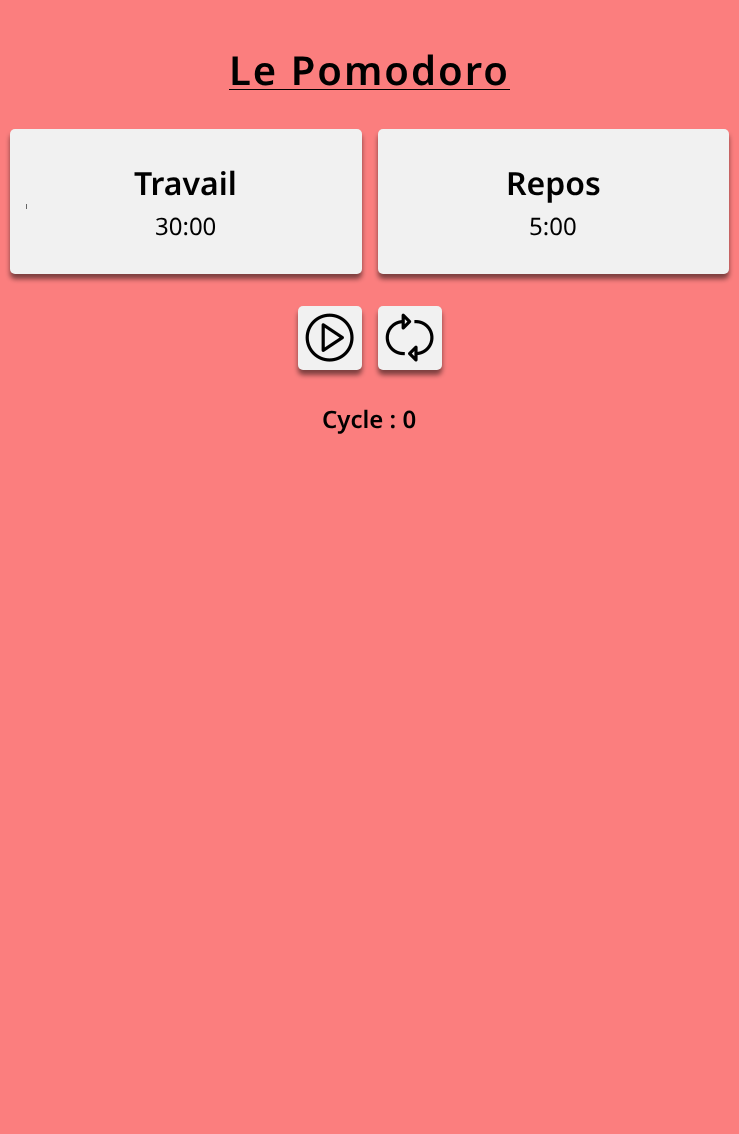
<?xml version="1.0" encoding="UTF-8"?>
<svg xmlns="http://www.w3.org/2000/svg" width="739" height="1134">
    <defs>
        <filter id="blur1" x="-50%" y="-200%" width="200%" height="500%"><feGaussianBlur stdDeviation="2.5"/></filter>
    </defs>
    <rect width="100%" height="100%" fill="#FB7E7E"/>
    <text x="229" y="85" font-family="Noto Sans" font-size="40" font-weight="600" letter-spacing="2" fill="#000000">Le Pomodoro</text>
    <rect x="229" y="89" width="281" height="1" fill="#000000"/>
    <rect x="10" y="134" width="352" height="145" rx="5" fill="#000000" fill-opacity="0.5" filter="url(#blur1)"/>
    <rect x="10" y="129" width="352" height="145" rx="5" fill="#F1F1F1"/>
    <text x="134" y="195" font-family="Noto Sans" font-size="32" font-weight="600" fill="#000000">Travail</text>
    <rect x="26" y="204" width="1" height="5" fill="#666666"/>
    <text x="155" y="235" font-family="Noto Sans" font-size="24" fill="#000000">30:00</text>
    <rect x="378" y="134" width="351" height="145" rx="5" fill="#000000" fill-opacity="0.5" filter="url(#blur1)"/>
    <rect x="378" y="129" width="351" height="145" rx="5" fill="#F1F1F1"/>
    <text x="506" y="195" font-family="Noto Sans" font-size="32" font-weight="600" fill="#000000">Repos</text>
    <text x="529" y="235" font-family="Noto Sans" font-size="24" fill="#000000">5:00</text>
    <rect x="298" y="311" width="64" height="64" rx="5" fill="#000000" fill-opacity="0.5" filter="url(#blur1)"/>
    <rect x="298" y="306" width="64" height="64" rx="5" fill="#F1F1F1"/>
    <image x="305" y="313" width="49" height="49" href="img_01.png"/>
    <rect x="378" y="311" width="64" height="64" rx="5" fill="#000000" fill-opacity="0.5" filter="url(#blur1)"/>
    <rect x="378" y="306" width="64" height="64" rx="5" fill="#F1F1F1"/>
    <image x="385" y="313" width="49" height="49" href="img_02.png"/>
    <text x="322" y="428" font-family="Noto Sans" font-size="24" font-weight="600" fill="#000000">Cycle : 0</text>
</svg>
